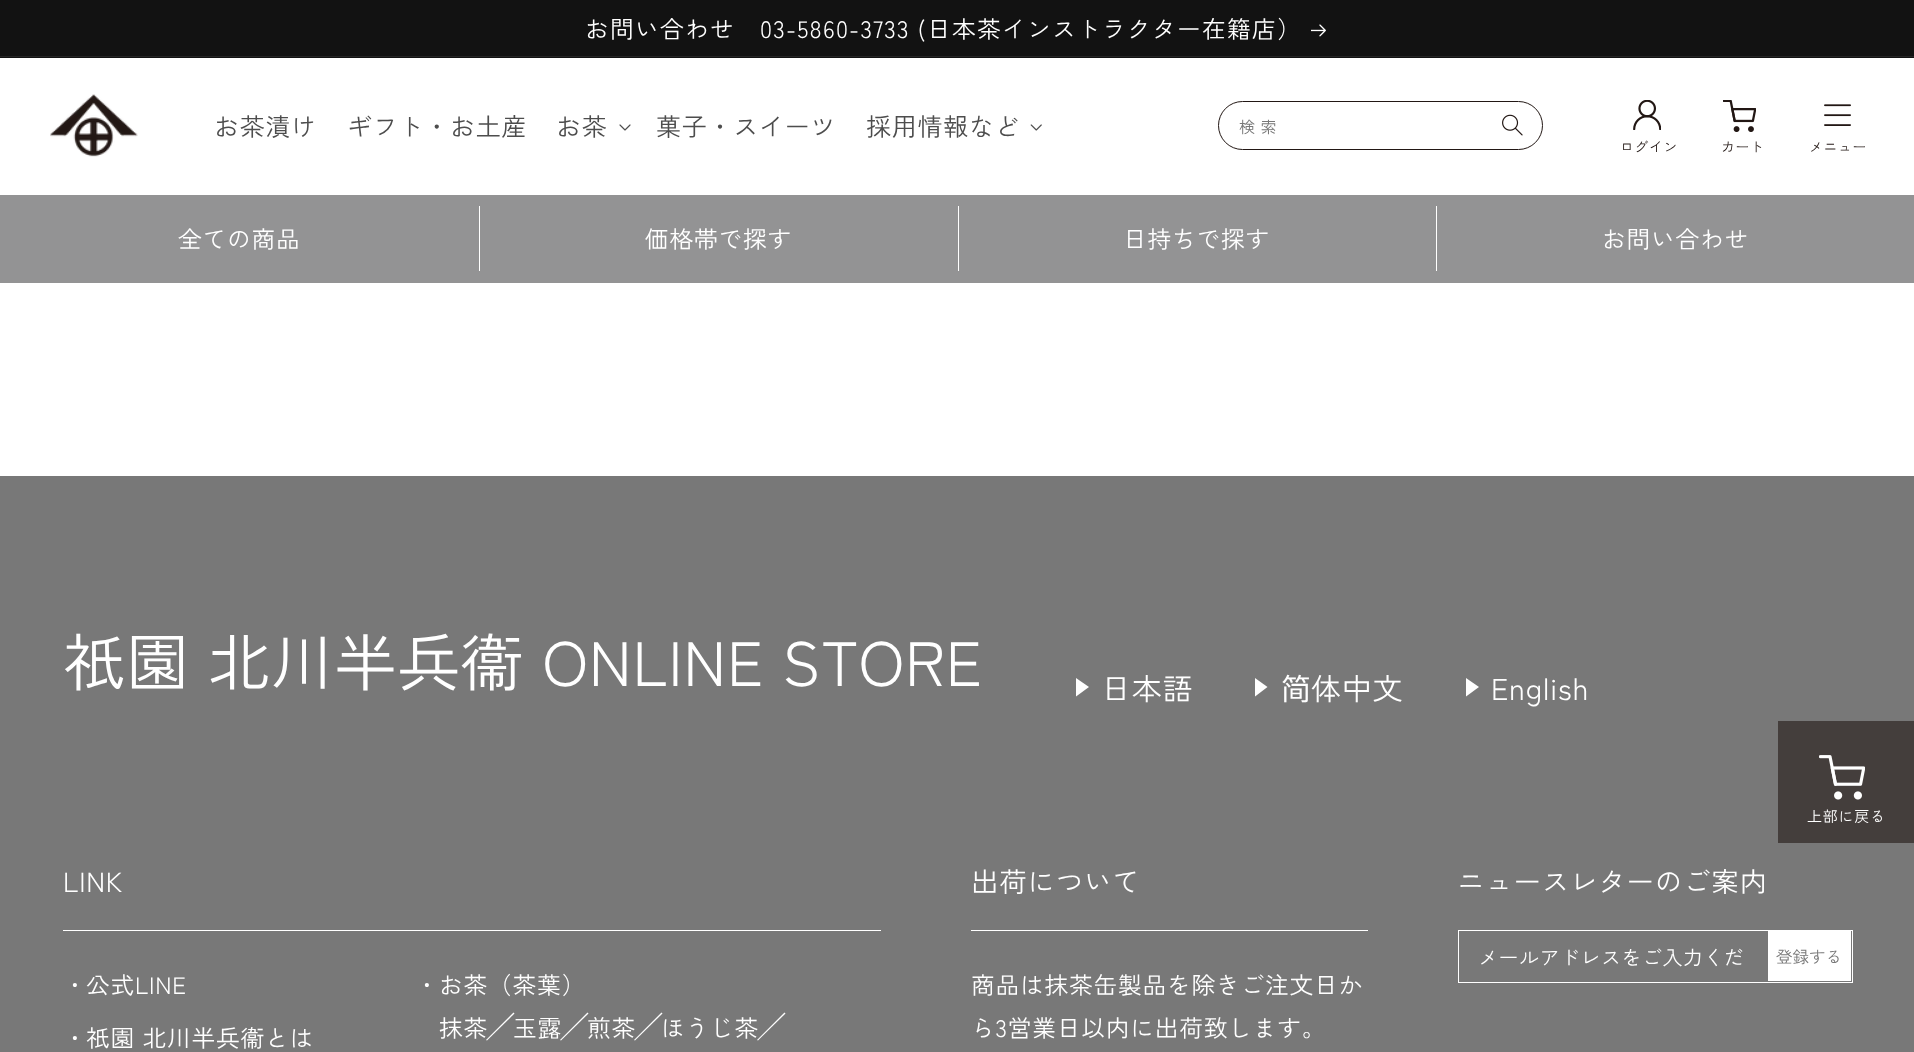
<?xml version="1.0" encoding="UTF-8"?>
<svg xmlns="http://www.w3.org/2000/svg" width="1914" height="1052">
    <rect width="100%" height="100%" fill="#FFFFFF"/>
    <rect x="0" y="0" width="1914" height="58" fill="#121212"/>
    <rect x="0" y="56" width="1914" height="1" fill="#252525"/>
    <text x="585" y="38" font-family="Zen Kaku Gothic New" font-size="23.75" letter-spacing="1.25" fill="#FFFFFF">お問い合わせ　03-5860-3733 (日本茶インストラクター在籍店）</text>
    <image x="1311" y="24" width="15" height="13" href="img_01.png"/>
    <image x="50" y="94" width="88" height="63" href="img_02.png"/>
    <text x="214" y="136" font-family="Zen Kaku Gothic New" font-size="25" letter-spacing="0.75" fill="#4D4D4D">お茶漬け</text>
    <text x="347" y="136" font-family="Zen Kaku Gothic New" font-size="25" letter-spacing="0.75" fill="#4D4D4D">ギフト・お土産</text>
    <text x="556" y="136" font-family="Zen Kaku Gothic New" font-size="25" letter-spacing="0.75" fill="#4D4D4D">お茶</text>
    <image x="619" y="124" width="12" height="7" href="img_03.png"/>
    <text x="656" y="136" font-family="Zen Kaku Gothic New" font-size="25" letter-spacing="0.75" fill="#4D4D4D">菓子・スイーツ</text>
    <text x="866" y="136" font-family="Zen Kaku Gothic New" font-size="25" letter-spacing="0.75" fill="#4D4D4D">採用情報など</text>
    <image x="1030" y="124" width="12" height="7" href="img_04.png"/>
    <rect x="1218.5" y="101.5" width="324" height="48" rx="24" fill="none" stroke="#221714"/>
    <text x="1239" y="133" font-family="Zen Kaku Gothic New" font-size="16" letter-spacing="0.5" fill="#787878">検 索</text>
    <image x="1502" y="114" width="21" height="22" href="img_05.png"/>
    <image x="1633" y="100" width="28" height="30" href="img_06.png"/>
    <text x="1620" y="152" font-family="Zen Kaku Gothic New" font-size="13.75" letter-spacing="0.75" fill="#221714">ログイン</text>
    <image x="1723" y="100" width="33" height="32" href="img_07.png"/>
    <text x="1721" y="152" font-family="Zen Kaku Gothic New" font-size="13.75" letter-spacing="0.75" fill="#221714">カート</text>
    <image x="1824" y="104" width="27" height="22" href="img_08.png"/>
    <text x="1809" y="152" font-family="Zen Kaku Gothic New" font-size="13.75" letter-spacing="0.75" fill="#221714">メニュー</text>
    <rect x="0" y="195" width="1914" height="88" fill="#939394"/>
    <text x="178" y="248" font-family="Zen Kaku Gothic New" font-size="23.75" letter-spacing="0.75" fill="#FFFFFF">全ての商品</text>
    <rect x="479" y="206" width="1" height="65" fill="#FFFFFF"/>
    <text x="645" y="248" font-family="Zen Kaku Gothic New" font-size="23.75" letter-spacing="0.75" fill="#FFFFFF">価格帯で探す</text>
    <rect x="958" y="206" width="1" height="65" fill="#FFFFFF"/>
    <text x="1123" y="248" font-family="Zen Kaku Gothic New" font-size="23.75" letter-spacing="0.75" fill="#FFFFFF">日持ちで探す</text>
    <rect x="1436" y="206" width="1" height="65" fill="#FFFFFF"/>
    <text x="1602" y="248" font-family="Zen Kaku Gothic New" font-size="23.75" letter-spacing="0.75" fill="#FFFFFF">お問い合わせ</text>
    <rect x="0" y="476" width="1914" height="576" fill="#787878"/>
    <text x="63" y="686" font-family="Zen Kaku Gothic New" font-size="62.5" letter-spacing="0.75" fill="#FFFFFF">祇園 北川半兵衞 ONLINE STORE</text>
    <path d="M 1076 678 V 696.5 L 1089 687 Z" fill="#FFFFFF"/>
    <text x="1101" y="700" font-family="Zen Kaku Gothic New" font-size="30" letter-spacing="0.75" fill="#FFFFFF">日本語</text>
    <path d="M 1255 678 V 696.5 L 1267.5 687 Z" fill="#FFFFFF"/>
    <text x="1281" y="700" font-family="Noto Sans CJK SC" font-size="30" letter-spacing="0.75" fill="#FFFFFF">简</text>
    <text x="1311" y="700" font-family="Zen Kaku Gothic New" font-size="30" letter-spacing="0.75" fill="#FFFFFF">体中文</text>
    <path d="M 1466 678 V 696.5 L 1479 687 Z" fill="#FFFFFF"/>
    <text x="1491" y="700" font-family="Zen Kaku Gothic New" font-size="30" letter-spacing="0.75" fill="#FFFFFF">English</text>
    <rect x="63" y="930" width="818" height="1" fill="#FFFFFF"/>
    <text x="63" y="892" font-family="Zen Kaku Gothic New" font-size="27.5" letter-spacing="0.75" fill="#FFFFFF">LINK</text>
    <text x="63" y="994" font-family="Zen Kaku Gothic New" font-size="23.75" letter-spacing="0.75" fill="#FFFFFF">・</text>
    <text x="86" y="994" font-family="Zen Kaku Gothic New" font-size="23.75" letter-spacing="0.75" fill="#FFFFFF">公式LINE</text>
    <text x="63" y="1047" font-family="Zen Kaku Gothic New" font-size="23.75" letter-spacing="0.75" fill="#FFFFFF">・</text>
    <text x="86" y="1047" font-family="Zen Kaku Gothic New" font-size="23.75" letter-spacing="0.75" fill="#FFFFFF">祇園 北川半兵衞とは</text>
    <text x="415" y="994" font-family="Zen Kaku Gothic New" font-size="23.75" letter-spacing="0.75" fill="#FFFFFF">・</text>
    <text font-family="Zen Kaku Gothic New" font-size="23.75" letter-spacing="0.75" fill="#FFFFFF">
        <tspan x="439" y="994">お茶（茶葉）</tspan>
        <tspan x="439" y="1037">抹茶</tspan>
    </text>
    <path d="M 513.5 1012.5 L 514.5 1013.5 L 487 1040.5 L 486 1040 Z" fill="#FFFFFF"/>
    <text x="513" y="1037" font-family="Zen Kaku Gothic New" font-size="23.75" letter-spacing="0.75" fill="#FFFFFF">玉露</text>
    <path d="M 587.5 1012.5 L 588.5 1013.5 L 561 1040.5 L 560 1040 Z" fill="#FFFFFF"/>
    <text x="587" y="1037" font-family="Zen Kaku Gothic New" font-size="23.75" letter-spacing="0.75" fill="#FFFFFF">煎茶</text>
    <path d="M 661.5 1012.5 L 662.5 1013.5 L 635 1040.5 L 634 1040 Z" fill="#FFFFFF"/>
    <text x="661" y="1037" font-family="Zen Kaku Gothic New" font-size="23.75" letter-spacing="0.75" fill="#FFFFFF">ほうじ茶</text>
    <path d="M 784.5 1012.5 L 785.5 1013.5 L 758 1040.5 L 757 1040 Z" fill="#FFFFFF"/>
    <rect x="971" y="930" width="397" height="1" fill="#FFFFFF"/>
    <text x="971" y="892" font-family="Zen Kaku Gothic New" font-size="27.5" letter-spacing="0.75" fill="#FFFFFF">出荷について</text>
    <text font-family="Zen Kaku Gothic New" font-size="23.75" letter-spacing="0.75" fill="#FFFFFF">
        <tspan x="971" y="994">商品は抹茶缶製品を除きご注文日か</tspan>
        <tspan x="971" y="1037">ら3営業日以内に出荷致します。</tspan>
    </text>
    <text x="1457" y="892" font-family="Zen Kaku Gothic New" font-size="27.5" letter-spacing="0.75" fill="#FFFFFF">ニュースレターのご案内</text>
    <rect x="1458.5" y="930.5" width="394" height="52" fill="none" stroke="#FFFFFF"/>
    <text x="1478" y="965" font-family="Zen Kaku Gothic New" font-size="20" letter-spacing="0.5" fill="#FFFFFF">メールアドレスをご入力くだ</text>
    <rect x="1768" y="931" width="83" height="50" fill="#FFFFFF"/>
    <text x="1776" y="963" font-family="Zen Kaku Gothic New" font-size="16.5" fill="#787878">登録する</text>
    <rect x="1778" y="721" width="136" height="122" fill="#443E3C"/>
    <image x="1819" y="755" width="46" height="45" href="img_09.png"/>
    <text x="1807" y="822" font-family="Zen Kaku Gothic New" font-size="15" letter-spacing="0.75" fill="#FFFFFF">上部に戻る</text>
</svg>
